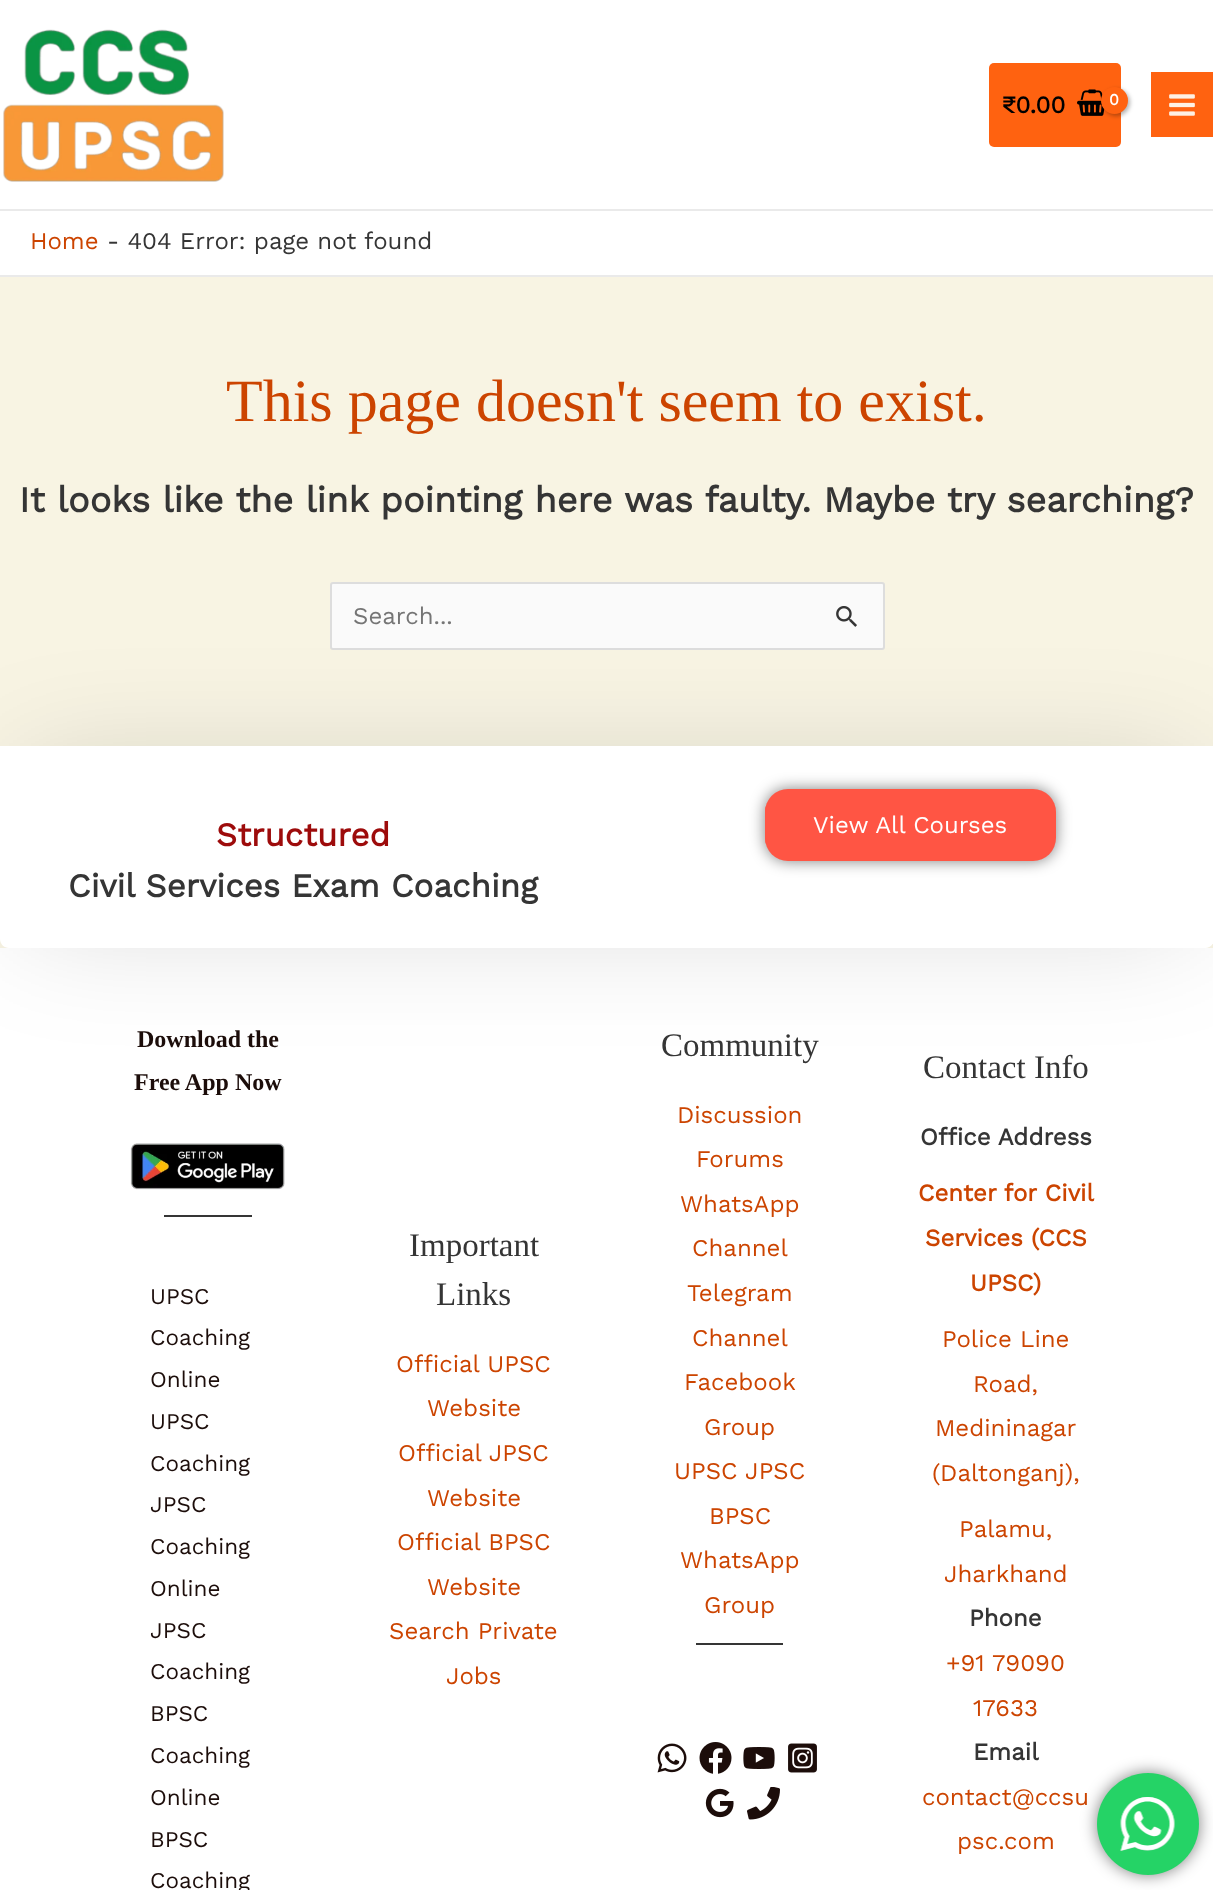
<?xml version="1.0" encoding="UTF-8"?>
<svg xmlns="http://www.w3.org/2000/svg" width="1213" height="1890">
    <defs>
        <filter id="blur1" x="-50%" y="-200%" width="200%" height="500%"><feGaussianBlur stdDeviation="2"/></filter>
        <filter id="blur2" x="-50%" y="-200%" width="200%" height="500%"><feGaussianBlur stdDeviation="60"/></filter>
        <filter id="blur3" x="-50%" y="-200%" width="200%" height="500%"><feGaussianBlur stdDeviation="7.5"/></filter>
        <clipPath id="clip1"><rect x="765" y="789" width="291" height="72" rx="23"/></clipPath>
        <filter id="blur4" x="-50%" y="-200%" width="200%" height="500%"><feGaussianBlur stdDeviation="8"/></filter>
    </defs>
    <rect width="100%" height="100%" fill="#F8F4E3"/>
    <rect x="0" y="0" width="1213" height="209" fill="#FFFFFF"/>
    <rect x="0" y="209" width="1213" height="2" fill="#EAEAEA"/>
    <image x="3" y="29" width="221" height="153" href="img_01.png"/>
    <rect x="989" y="63" width="132" height="84" rx="5" fill="#FF6210"/>
    <text x="1002" y="113" font-family="Work Sans" font-size="24" font-weight="700" fill="#000000">₹0.00</text>
    <image x="1077" y="89" width="28" height="27" href="img_02.png"/>
    <rect x="1103" y="89" width="27" height="27" rx="13.5" fill="#000000" fill-opacity="0.3" filter="url(#blur1)"/>
    <circle cx="1114.5" cy="100.5" r="13.5" fill="#FF6210"/>
    <text x="1109" y="105" font-family="Work Sans" font-size="16" font-weight="700" letter-spacing="-1" fill="#FFFFFF">0</text>
    <rect x="1151" y="72" width="62" height="65" fill="#FF6210"/>
    <image x="1169" y="94" width="26" height="22" href="img_03.png"/>
    <rect x="0" y="211" width="1213" height="64" fill="#FFFFFF"/>
    <rect x="0" y="275" width="1213" height="2" fill="#EAEAEA"/>
    <text x="30" y="249" font-family="Work Sans" font-size="24" fill="#CC4400">Home</text>
    <text x="107" y="249" font-family="Work Sans" font-size="24" fill="#353535">- 404 Error: page not found</text>
    <text x="226" y="421" font-family="Liberation Serif" font-size="60" fill="#CC4400">This page doesn't seem to exist.</text>
    <text x="19" y="512" font-family="Work Sans" font-size="36" font-weight="700" fill="#353535">It looks like the link pointing here was faulty. Maybe try searching?</text>
    <rect x="331" y="583" width="553" height="66" rx="2" fill="#FAFAFA" stroke="#DDDDDD" stroke-width="2"/>
    <text x="353" y="624" font-family="Work Sans" font-size="24" fill="#757575">Search...</text>
    <image x="836" y="606" width="21" height="21" href="img_04.png"/>
    <rect x="0" y="948" width="1213" height="942" fill="#FFFFFF"/>
    <rect x="24" y="770" width="1166" height="154" fill="#000000" fill-opacity="0.16" filter="url(#blur2)"/>
    <path d="M 0 746 H 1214 V 939 C 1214 944 1210 948 1205 948 H 9 C 4 948 0 944 0 939 Z" fill="#FFFFFF"/>
    <text x="216" y="846" font-family="Work Sans" font-size="33" font-weight="700" fill="#9D0B0B">Structured</text>
    <text x="68" y="897" font-family="Work Sans" font-size="33" font-weight="700" fill="#353535">Civil Services Exam Coaching</text>
    <rect x="765" y="789" width="291" height="72" rx="23" fill="#000000" fill-opacity="0.5" filter="url(#blur3)"/>
    <rect x="765" y="789" width="291" height="72" rx="23" fill="#FF5544"/>
    <g clip-path="url(#clip1)">
        <path d="M 765 789 H 744 C 756.5 789 767 799.5 767 812 V 838 C 767 850.5 756.5 861 744 861 H 765 Z" fill="#FF5544"/>
    </g>
    <text x="813" y="833" font-family="Work Sans" font-size="24" fill="#FFFFFF">View All Courses</text>
    <text x="137" y="1047" font-family="Liberation Serif" font-size="24" font-weight="700" fill="#1C0D0A">Download the</text>
    <text x="134" y="1090" font-family="Liberation Serif" font-size="24" font-weight="700" fill="#1C0D0A">Free App Now</text>
    <image x="130" y="1143" width="155" height="47" href="img_05.png"/>
    <rect x="164" y="1215" width="88" height="2" fill="#353535"/>
    <text font-family="Work Sans" font-size="22.5" fill="#1C0D0A">
        <tspan x="150" y="1304">UPSC</tspan>
        <tspan x="150" y="1345">Coaching</tspan>
        <tspan x="150" y="1387">Online</tspan>
        <tspan x="150" y="1429">UPSC</tspan>
        <tspan x="150" y="1471">Coaching</tspan>
        <tspan x="150" y="1512">JPSC</tspan>
        <tspan x="150" y="1554">Coaching</tspan>
        <tspan x="150" y="1596">Online</tspan>
        <tspan x="150" y="1638">JPSC</tspan>
        <tspan x="150" y="1679">Coaching</tspan>
        <tspan x="150" y="1721">BPSC</tspan>
        <tspan x="150" y="1763">Coaching</tspan>
        <tspan x="150" y="1805">Online</tspan>
        <tspan x="150" y="1847">BPSC</tspan>
        <tspan x="150" y="1888">Coaching</tspan>
    </text>
    <text x="409" y="1256" font-family="Liberation Serif" font-size="33" fill="#353535">Important</text>
    <text x="436" y="1305" font-family="Liberation Serif" font-size="33" fill="#353535">Links</text>
    <text x="396" y="1372" font-family="Work Sans" font-size="24" fill="#CC4400">Official UPSC</text>
    <text x="427" y="1416" font-family="Work Sans" font-size="24" fill="#CC4400">Website</text>
    <text x="398" y="1461" font-family="Work Sans" font-size="24" fill="#CC4400">Official JPSC</text>
    <text x="427" y="1506" font-family="Work Sans" font-size="24" fill="#CC4400">Website</text>
    <text x="397" y="1550" font-family="Work Sans" font-size="24" fill="#CC4400">Official BPSC</text>
    <text x="427" y="1595" font-family="Work Sans" font-size="24" fill="#CC4400">Website</text>
    <text x="389" y="1639" font-family="Work Sans" font-size="24" fill="#CC4400">Search Private</text>
    <text x="446" y="1684" font-family="Work Sans" font-size="24" fill="#CC4400">Jobs</text>
    <text x="661" y="1056" font-family="Liberation Serif" font-size="33" fill="#353535">Community</text>
    <text x="677" y="1123" font-family="Work Sans" font-size="24" fill="#CC4400">Discussion</text>
    <text x="696" y="1167" font-family="Work Sans" font-size="24" fill="#CC4400">Forums</text>
    <text x="680" y="1212" font-family="Work Sans" font-size="24" fill="#CC4400">WhatsApp</text>
    <text x="692" y="1256" font-family="Work Sans" font-size="24" fill="#CC4400">Channel</text>
    <text x="687" y="1301" font-family="Work Sans" font-size="24" fill="#CC4400">Telegram</text>
    <text x="692" y="1346" font-family="Work Sans" font-size="24" fill="#CC4400">Channel</text>
    <text x="684" y="1390" font-family="Work Sans" font-size="24" fill="#CC4400">Facebook</text>
    <text x="704" y="1435" font-family="Work Sans" font-size="24" fill="#CC4400">Group</text>
    <text x="674" y="1479" font-family="Work Sans" font-size="24" fill="#CC4400">UPSC JPSC</text>
    <text x="709" y="1524" font-family="Work Sans" font-size="24" fill="#CC4400">BPSC</text>
    <text x="680" y="1568" font-family="Work Sans" font-size="24" fill="#CC4400">WhatsApp</text>
    <text x="704" y="1613" font-family="Work Sans" font-size="24" fill="#CC4400">Group</text>
    <rect x="696" y="1643" width="87" height="2" fill="#353535"/>
    <image x="657" y="1743" width="30" height="30" href="img_06.png"/>
    <image x="699" y="1742" width="33" height="32" href="img_07.png"/>
    <image x="743" y="1747" width="32" height="22" href="img_08.png"/>
    <image x="788" y="1743" width="29" height="30" href="img_09.png"/>
    <image x="705" y="1788" width="29" height="30" href="img_10.png"/>
    <image x="747" y="1787" width="33" height="33" href="img_11.png"/>
    <text x="923" y="1078" font-family="Liberation Serif" font-size="33" fill="#353535">Contact Info</text>
    <text x="920" y="1145" font-family="Work Sans" font-size="24" font-weight="700" fill="#353535">Office Address</text>
    <text x="918" y="1201" font-family="Work Sans" font-size="24" font-weight="700" fill="#CC4400">Center for Civil</text>
    <text x="925" y="1246" font-family="Work Sans" font-size="24" font-weight="700" fill="#CC4400">Services (CCS</text>
    <text x="970" y="1291" font-family="Work Sans" font-size="24" font-weight="700" fill="#CC4400">UPSC)</text>
    <text x="942" y="1347" font-family="Work Sans" font-size="24" fill="#CC4400">Police Line</text>
    <text x="973" y="1392" font-family="Work Sans" font-size="24" fill="#CC4400">Road,</text>
    <text x="935" y="1436" font-family="Work Sans" font-size="24" fill="#CC4400">Medininagar</text>
    <text x="932" y="1481" font-family="Work Sans" font-size="24" fill="#CC4400">(Daltonganj),</text>
    <text x="959" y="1537" font-family="Work Sans" font-size="24" fill="#CC4400">Palamu,</text>
    <text x="944" y="1582" font-family="Work Sans" font-size="24" fill="#CC4400">Jharkhand</text>
    <text x="969" y="1626" font-family="Work Sans" font-size="24" font-weight="700" fill="#353535">Phone</text>
    <text x="946" y="1671" font-family="Work Sans" font-size="24" fill="#CC4400">+91 79090</text>
    <text x="973" y="1716" font-family="Work Sans" font-size="24" fill="#CC4400">17633</text>
    <text x="973" y="1760" font-family="Work Sans" font-size="24" font-weight="700" fill="#353535">Email</text>
    <text x="922" y="1805" font-family="Work Sans" font-size="24" fill="#CC4400">contact@ccsu</text>
    <text x="957" y="1849" font-family="Work Sans" font-size="24" fill="#CC4400">psc.com</text>
    <rect x="1097" y="1773" width="102" height="102" rx="51" fill="#000000" fill-opacity="0.5" filter="url(#blur4)"/>
    <circle cx="1148" cy="1824" r="51" fill="#25D366"/>
    <image x="1120" y="1797" width="55" height="54" href="img_12.png"/>
</svg>
